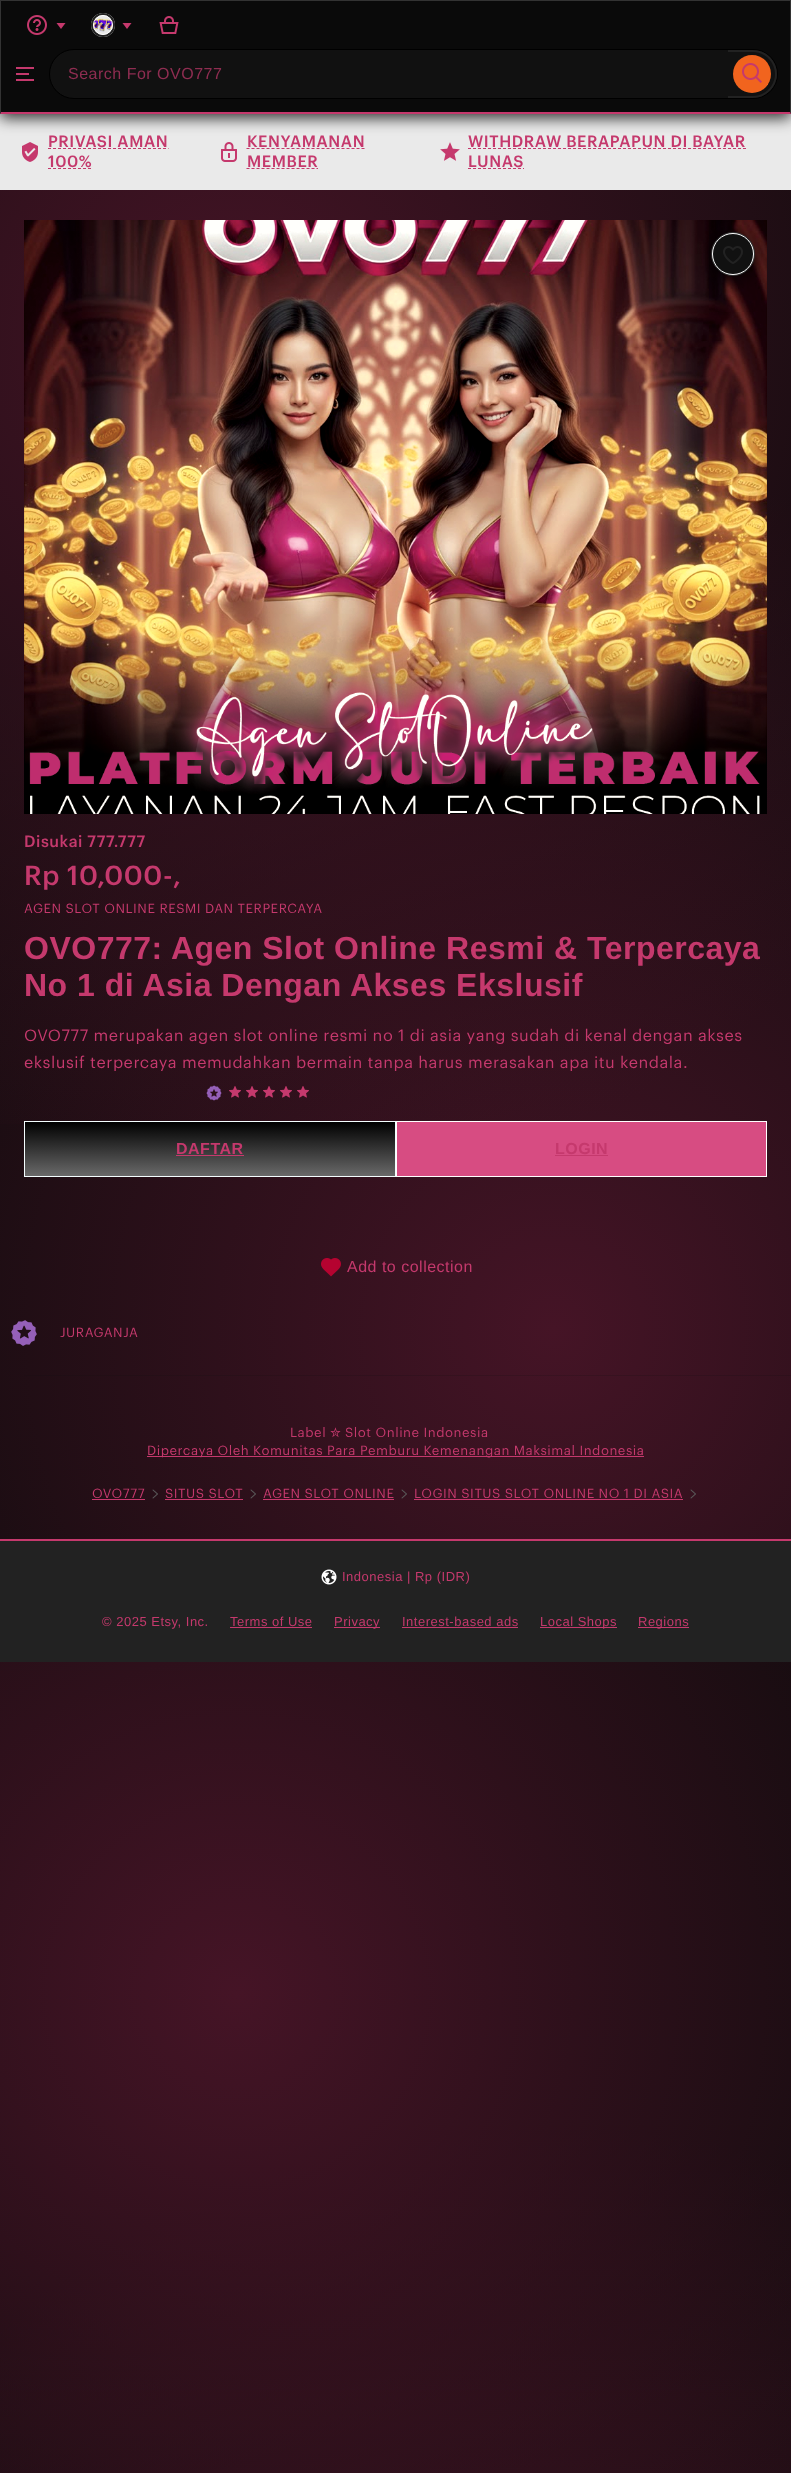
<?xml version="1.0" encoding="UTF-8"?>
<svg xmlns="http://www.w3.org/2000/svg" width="791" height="2473">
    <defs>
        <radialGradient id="g1" gradientUnits="userSpaceOnUse" cx="554" cy="2992" r="1440"><stop offset="0" stop-color="#451426"/><stop offset="0.6" stop-color="#0A0A0A"/></radialGradient>
        <radialGradient id="g2" gradientUnits="userSpaceOnUse" cx="237" cy="1994" r="1440"><stop offset="0" stop-color="#451426"/><stop offset="0.6" stop-color="#451426" stop-opacity="0"/></radialGradient>
        <radialGradient id="g3" gradientUnits="userSpaceOnUse" cx="554" cy="1330" r="1440"><stop offset="0" stop-color="#451426"/><stop offset="0.6" stop-color="#0A0A0A"/></radialGradient>
        <radialGradient id="g4" gradientUnits="userSpaceOnUse" cx="237" cy="332" r="1440"><stop offset="0" stop-color="#451426"/><stop offset="0.6" stop-color="#451426" stop-opacity="0"/></radialGradient>
        <filter id="blur1" x="-50%" y="-200%" width="200%" height="500%"><feGaussianBlur stdDeviation="7.5"/></filter>
        <linearGradient id="g5" gradientUnits="userSpaceOnUse" x1="210" y1="1122" x2="210" y2="1176"><stop offset="0" stop-color="#000000"/><stop offset="1" stop-color="#696969"/></linearGradient>
    </defs>
    <rect width="100%" height="100%" fill="#FFFFFF"/>
    <rect x="0" y="1662" width="791" height="811" fill="url(#g1)"/>
    <rect x="0" y="1662" width="791" height="811" fill="url(#g2)"/>
    <rect x="0" y="112" width="791" height="1427" fill="url(#g3)"/>
    <rect x="0" y="112" width="791" height="1012" fill="url(#g4)"/>
    <rect x="0" y="114" width="791" height="76" fill="#EAEAEA"/>
    <rect x="0" y="4" width="791" height="114" fill="#000000" fill-opacity="0.8" filter="url(#blur1)"/>
    <rect x="1" y="1" width="789" height="111" fill="#0A0A0A"/>
    <rect x="0" y="0" width="791" height="1" fill="#333333"/>
    <path d="M 791 0 V 114 L 790 112 V 1 Z" fill="#333333"/>
    <path d="M 791 114 H 0 L 1 112 H 790 Z" fill="#C5396D"/>
    <path d="M 0 114 V 0 L 1 1 V 112 Z" fill="#333333"/>
    <image x="27" y="15" width="20" height="20" href="img_01.png"/>
    <path d="M 65.5 23 L 61 29 L 56.5 23 Z" fill="#C5396D"/>
    <circle cx="103" cy="25" r="12" fill="#E8E8E8"/>
    <image x="92" y="18" width="22" height="14" href="img_02.png"/>
    <circle cx="103" cy="25" r="11" fill="none" stroke="#222222" stroke-width="2"/>
    <circle cx="103" cy="25" r="9.5" fill="none" stroke="#FFFFFF"/>
    <path d="M 131.5 23 L 127 29 L 122.5 23 Z" fill="#C5396D"/>
    <image x="159" y="16" width="20" height="18" href="img_03.png"/>
    <image x="16" y="67" width="18" height="14" href="img_04.png"/>
    <rect x="49.5" y="49.5" width="728" height="49" rx="24.5" fill="#111111" stroke="#000000"/>
    <text x="68" y="79" font-family="Liberation Sans" font-size="16" letter-spacing="0.5" fill="#8F2D51">Search For OVO777</text>
    <path d="M 728 50 H 753 C 766 50 777 61 777 74 C 777 87 766 98 753 98 H 728 Z M 728 52 H 753 C 765 52 775 62 775 74 C 775 86 765 96 753 96 H 728 Z" fill="#222222" fill-rule="evenodd"/>
    <circle cx="752" cy="74" r="19" fill="#F1641E"/>
    <image x="742" y="63" width="20" height="20" href="img_05.png"/>
    <image x="22" y="142" width="16" height="20" href="img_06.png"/>
    <text x="48" y="147" font-family="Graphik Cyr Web" font-size="16" font-weight="500" letter-spacing="0.5" fill="#C5396D">PRIVASI AMAN</text>
    <path d="M 48 148.5 H 168.5" fill="none" stroke="#C5396D" stroke-dasharray="3 2"/>
    <text x="48" y="167" font-family="Graphik Cyr Web" font-size="16" font-weight="500" letter-spacing="0.5" fill="#C5396D">100%</text>
    <path d="M 48 168.5 H 92" fill="none" stroke="#C5396D" stroke-dasharray="3 2"/>
    <image x="221" y="142" width="16" height="20" href="img_07.png"/>
    <text x="247" y="147" font-family="Graphik Cyr Web" font-size="16" font-weight="500" letter-spacing="0.5" fill="#C5396D">KENYAMANAN</text>
    <path d="M 246.5 148.5 H 365" fill="none" stroke="#C5396D" stroke-dasharray="3 2"/>
    <text x="247" y="167" font-family="Graphik Cyr Web" font-size="16" font-weight="500" letter-spacing="0.5" fill="#C5396D">MEMBER</text>
    <path d="M 246.5 168.5 H 318" fill="none" stroke="#C5396D" stroke-dasharray="3 2"/>
    <image x="440" y="142" width="20" height="19" href="img_08.png"/>
    <text x="468" y="147" font-family="Graphik Cyr Web" font-size="16" font-weight="500" letter-spacing="0.5" fill="#C5396D">WITHDRAW BERAPAPUN DI BAYAR</text>
    <path d="M 468 148.5 H 746" fill="none" stroke="#C5396D" stroke-dasharray="3 2"/>
    <text x="468" y="167" font-family="Graphik Cyr Web" font-size="16" font-weight="500" letter-spacing="0.5" fill="#C5396D">LUNAS</text>
    <path d="M 468 168.5 H 524" fill="none" stroke="#C5396D" stroke-dasharray="3 2"/>
    <image x="24" y="220" width="743" height="594" href="img_10.png"/>
    <rect x="711" y="236" width="44" height="44" rx="22" fill="#000000" fill-opacity="0.7" filter="url(#blur1)"/>
    <circle cx="733" cy="254" r="21.5" fill="#111111" stroke="#333333"/>
    <circle cx="733" cy="254" r="20.5" fill="none" stroke="#FFFFFF"/>
    <image x="723" y="246" width="20" height="18" href="img_09.png"/>
    <text x="24" y="847" font-family="Graphik Cyr Web" font-size="16" font-weight="500" letter-spacing="0.5" fill="#C5396D">Disukai 777.777</text>
    <text x="24" y="885" font-family="Graphik Cyr Web" font-size="27" font-weight="500" letter-spacing="0.5" fill="#C5396D">Rp 10,000-,</text>
    <text x="24" y="913" font-family="Graphik Cyr Web" font-size="13" letter-spacing="0.5" fill="#C5396D">AGEN SLOT ONLINE RESMI DAN TERPERCAYA</text>
    <text font-family="Liberation Sans" font-size="32" font-weight="700" letter-spacing="0.5" fill="#C5396D">
        <tspan x="24" y="959">OVO777: Agen Slot Online Resmi &amp; Terpercaya</tspan>
        <tspan x="24" y="996">No 1 di Asia Dengan Akses Ekslusif</tspan>
    </text>
    <text font-family="Graphik Cyr Web" font-size="16" letter-spacing="0.5" fill="#C5396D">
        <tspan x="24" y="1041">OVO777 merupakan agen slot online resmi no 1 di asia yang sudah di kenal dengan akses</tspan>
        <tspan x="24" y="1068">ekslusif terpercaya memudahkan bermain tanpa harus merasakan apa itu kendala.</tspan>
    </text>
    <image x="206" y="1085" width="16" height="16" href="img_11.png"/>
    <image x="229" y="1086" width="12" height="12" href="img_12.png"/>
    <image x="246" y="1086" width="12" height="12" href="img_13.png"/>
    <image x="263" y="1086" width="12" height="12" href="img_14.png"/>
    <image x="280" y="1086" width="12" height="12" href="img_15.png"/>
    <image x="297" y="1086" width="12" height="12" href="img_16.png"/>
    <rect x="25" y="1122" width="370" height="54" fill="url(#g5)"/>
    <rect x="24.5" y="1121.5" width="371" height="55" fill="none" stroke="#F4FEFF"/>
    <text x="176" y="1154" font-family="Liberation Sans" font-size="16" font-weight="700" letter-spacing="0.5" fill="#C5396D">DAFTAR</text>
    <rect x="176" y="1155" width="68" height="1" fill="#C5396D"/>
    <rect x="396.5" y="1121.5" width="370" height="55" fill="#D74C82" stroke="#FFFFFF"/>
    <text x="555" y="1154" font-family="Liberation Sans" font-size="16" font-weight="700" letter-spacing="0.5" fill="#C5396D">LOGIN</text>
    <rect x="555" y="1155" width="53" height="1" fill="#C5396D"/>
    <image x="321" y="1258" width="20" height="19" href="img_17.png"/>
    <text x="347" y="1272" font-family="Liberation Sans" font-size="16" letter-spacing="0.5" fill="#C5396D">Add to collection</text>
    <image x="11" y="1320" width="26" height="26" href="img_18.png"/>
    <text x="60" y="1337" font-family="Graphik Cyr Web" font-size="13" letter-spacing="0.5" fill="#C5396D">JURAGANJA</text>
    <rect x="24" y="1375" width="767" height="1" fill="#0E0E0E" fill-opacity="0.18"/>
    <text x="290" y="1437" font-family="Graphik Cyr Web" font-size="13" letter-spacing="0.5" fill="#C5396D">Label</text>
    <text x="330" y="1437" font-family="DejaVu Sans" font-size="13" letter-spacing="0.5" fill="#C5396D">✮</text>
    <text x="345" y="1437" font-family="Graphik Cyr Web" font-size="13" letter-spacing="0.5" fill="#C5396D">Slot Online Indonesia</text>
    <rect x="147" y="1456" width="497" height="1" fill="#C5396D"/>
    <text x="147" y="1455" font-family="Graphik Cyr Web" font-size="13" letter-spacing="0.5" fill="#C5396D">Dipercaya Oleh Komunitas Para Pemburu Kemenangan Maksimal Indonesia</text>
    <text x="92" y="1498" font-family="Graphik Cyr Web" font-size="13" letter-spacing="0.5" fill="#C5396D">OVO777</text>
    <rect x="92" y="1499" width="53" height="1" fill="#C5396D"/>
    <image x="152" y="1489" width="6" height="10" href="img_19.png"/>
    <text x="165" y="1498" font-family="Graphik Cyr Web" font-size="13" letter-spacing="0.5" fill="#C5396D">SITUS SLOT</text>
    <rect x="165" y="1499" width="78" height="1" fill="#C5396D"/>
    <image x="250" y="1489" width="6" height="10" href="img_20.png"/>
    <text x="263" y="1498" font-family="Graphik Cyr Web" font-size="13" letter-spacing="0.5" fill="#C5396D">AGEN SLOT ONLINE</text>
    <rect x="263" y="1499" width="131" height="1" fill="#C5396D"/>
    <image x="401" y="1489" width="6" height="10" href="img_21.png"/>
    <text x="414" y="1498" font-family="Graphik Cyr Web" font-size="13" letter-spacing="0.5" fill="#C5396D">LOGIN SITUS SLOT ONLINE NO 1 DI ASIA</text>
    <rect x="414" y="1499" width="269" height="1" fill="#C5396D"/>
    <image x="690" y="1489" width="6" height="10" href="img_22.png"/>
    <rect x="0" y="1539" width="791" height="2" fill="#C5396D"/>
    <rect x="0" y="1541" width="791" height="121" fill="#222222"/>
    <image x="321" y="1569" width="16" height="16" href="img_23.png"/>
    <text x="342" y="1581" font-family="Liberation Sans" font-size="13" letter-spacing="0.5" fill="#C5396D">Indonesia | Rp (IDR)</text>
    <text x="102" y="1626" font-family="Liberation Sans" font-size="13" letter-spacing="0.5" fill="#C5396D">© 2025 Etsy, Inc.</text>
    <text x="230" y="1626" font-family="Liberation Sans" font-size="13" letter-spacing="0.5" fill="#C5396D">Terms of Use</text>
    <rect x="230" y="1627" width="82" height="1" fill="#C5396D"/>
    <rect x="334" y="1627" width="46" height="1" fill="#C5396D"/>
    <text x="334" y="1626" font-family="Liberation Sans" font-size="13" letter-spacing="0.5" fill="#C5396D">Privacy</text>
    <text x="402" y="1626" font-family="Liberation Sans" font-size="13" letter-spacing="0.5" fill="#C5396D">Interest-based ads</text>
    <rect x="402" y="1627" width="116" height="1" fill="#C5396D"/>
    <rect x="540" y="1627" width="77" height="1" fill="#C5396D"/>
    <text x="540" y="1626" font-family="Liberation Sans" font-size="13" letter-spacing="0.5" fill="#C5396D">Local Shops</text>
    <rect x="638" y="1627" width="51" height="1" fill="#C5396D"/>
    <text x="638" y="1626" font-family="Liberation Sans" font-size="13" letter-spacing="0.5" fill="#C5396D">Regions</text>
</svg>
